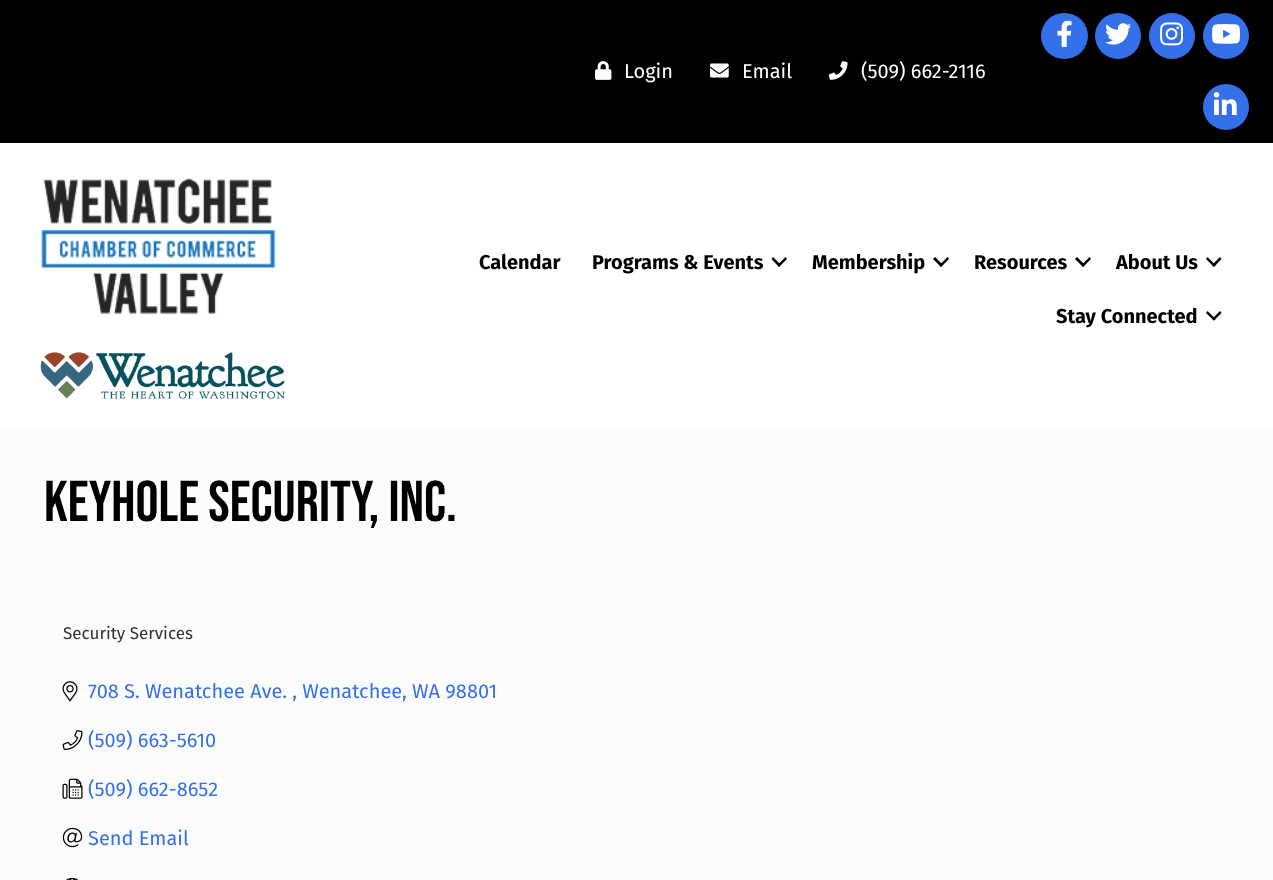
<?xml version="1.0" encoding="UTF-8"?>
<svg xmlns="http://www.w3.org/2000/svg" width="1273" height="880">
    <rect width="100%" height="100%" fill="#FFFFFF"/>
    <rect x="0" y="0" width="1273" height="143" fill="#000000"/>
    <image x="595" y="61" width="17" height="19" href="img_01.png"/>
    <text x="624" y="78" font-family="Fira Sans" font-size="20" fill="#FFFFFF">Login</text>
    <image x="710" y="63" width="19" height="15" href="img_02.png"/>
    <text x="742" y="78" font-family="Fira Sans" font-size="20" fill="#FFFFFF">Email</text>
    <image x="828" y="61" width="20" height="19" href="img_03.png"/>
    <text x="861" y="78" font-family="Fira Sans" font-size="20" fill="#FFFFFF">(509) 662-2116</text>
    <rect x="1041" y="13" width="47" height="46" rx="23" fill="#3370E9"/>
    <image x="1057" y="20" width="15" height="27" href="img_04.png"/>
    <circle cx="1118" cy="36" r="23" fill="#3370E9"/>
    <image x="1105" y="23" width="27" height="22" href="img_05.png"/>
    <circle cx="1172" cy="36" r="23" fill="#3370E9"/>
    <image x="1160" y="22" width="23" height="24" href="img_06.png"/>
    <circle cx="1226" cy="36" r="23" fill="#3370E9"/>
    <image x="1212" y="24" width="28" height="20" href="img_07.png"/>
    <circle cx="1226" cy="107" r="23" fill="#3370E9"/>
    <image x="1213" y="92" width="24" height="23" href="img_08.png"/>
    <image x="41" y="178" width="235" height="136" href="img_09.png"/>
    <image x="40" y="352" width="245" height="47" href="img_10.png"/>
    <text x="479" y="269" font-family="Fira Sans" font-size="20" font-weight="700" fill="#000000">Calendar</text>
    <text x="592" y="269" font-family="Fira Sans" font-size="20" font-weight="700" fill="#000000">Programs &amp; Events</text>
    <path d="M 785.5 257 L 787 259 L 779 267 L 777.5 265 Z" fill="#000000"/>
    <path d="M 773 257 L 781 265 L 779 267 L 771.5 259 Z" fill="#000000"/>
    <text x="812" y="269" font-family="Fira Sans" font-size="20" font-weight="700" fill="#000000">Membership</text>
    <path d="M 947.5 257 L 949 259 L 941 267 L 939.5 265 Z" fill="#000000"/>
    <path d="M 935 257 L 943 265 L 941 267 L 933 259 Z" fill="#000000"/>
    <text x="974" y="269" font-family="Fira Sans" font-size="20" font-weight="700" fill="#000000">Resources</text>
    <path d="M 1089.5 257 L 1091 259 L 1083 267 L 1081.5 265 Z" fill="#000000"/>
    <path d="M 1077 257 L 1085 265 L 1083 267 L 1075 259 Z" fill="#000000"/>
    <text x="1116" y="269" font-family="Fira Sans" font-size="20" font-weight="700" fill="#000000">About Us</text>
    <path d="M 1220 257 L 1221.5 259 L 1214 267 L 1212 265 Z" fill="#000000"/>
    <path d="M 1207.5 257 L 1215.5 265 L 1214 267 L 1206 259 Z" fill="#000000"/>
    <text x="1056" y="323" font-family="Fira Sans" font-size="20" font-weight="700" fill="#000000">Stay Connected</text>
    <path d="M 1220 311 L 1221.5 313 L 1214 320.5 L 1212 319 Z" fill="#000000"/>
    <path d="M 1207.5 311 L 1215.5 319 L 1214 320.5 L 1206 313 Z" fill="#000000"/>
    <rect x="0" y="430" width="1273" height="450" fill="#FCFCFC"/>
    <text x="44" y="521" font-family="Bebas Neue" font-size="57.5" fill="#000000">Keyhole Security, Inc.</text>
    <text x="63" y="639" font-family="Fira Sans" font-size="17" fill="#323232">Security Services</text>
    <image x="62" y="681" width="16" height="21" href="img_11.png"/>
    <text x="88" y="698" font-family="Fira Sans" font-size="20" fill="#3370E9">708 S. Wenatchee Ave. , Wenatchee, WA 98801</text>
    <image x="62" y="730" width="21" height="20" href="img_12.png"/>
    <text x="88" y="747" font-family="Fira Sans" font-size="20" fill="#3370E9">(509) 663-5610</text>
    <image x="62" y="778" width="21" height="21" href="img_13.png"/>
    <text x="88" y="796" font-family="Fira Sans" font-size="20" fill="#3370E9">(509) 662-8652</text>
    <image x="62" y="827" width="21" height="21" href="img_14.png"/>
    <text x="88" y="845" font-family="Fira Sans" font-size="20" fill="#3370E9">Send Email</text>
    <image x="66" y="877" width="13" height="3" href="img_15.png"/>
</svg>
